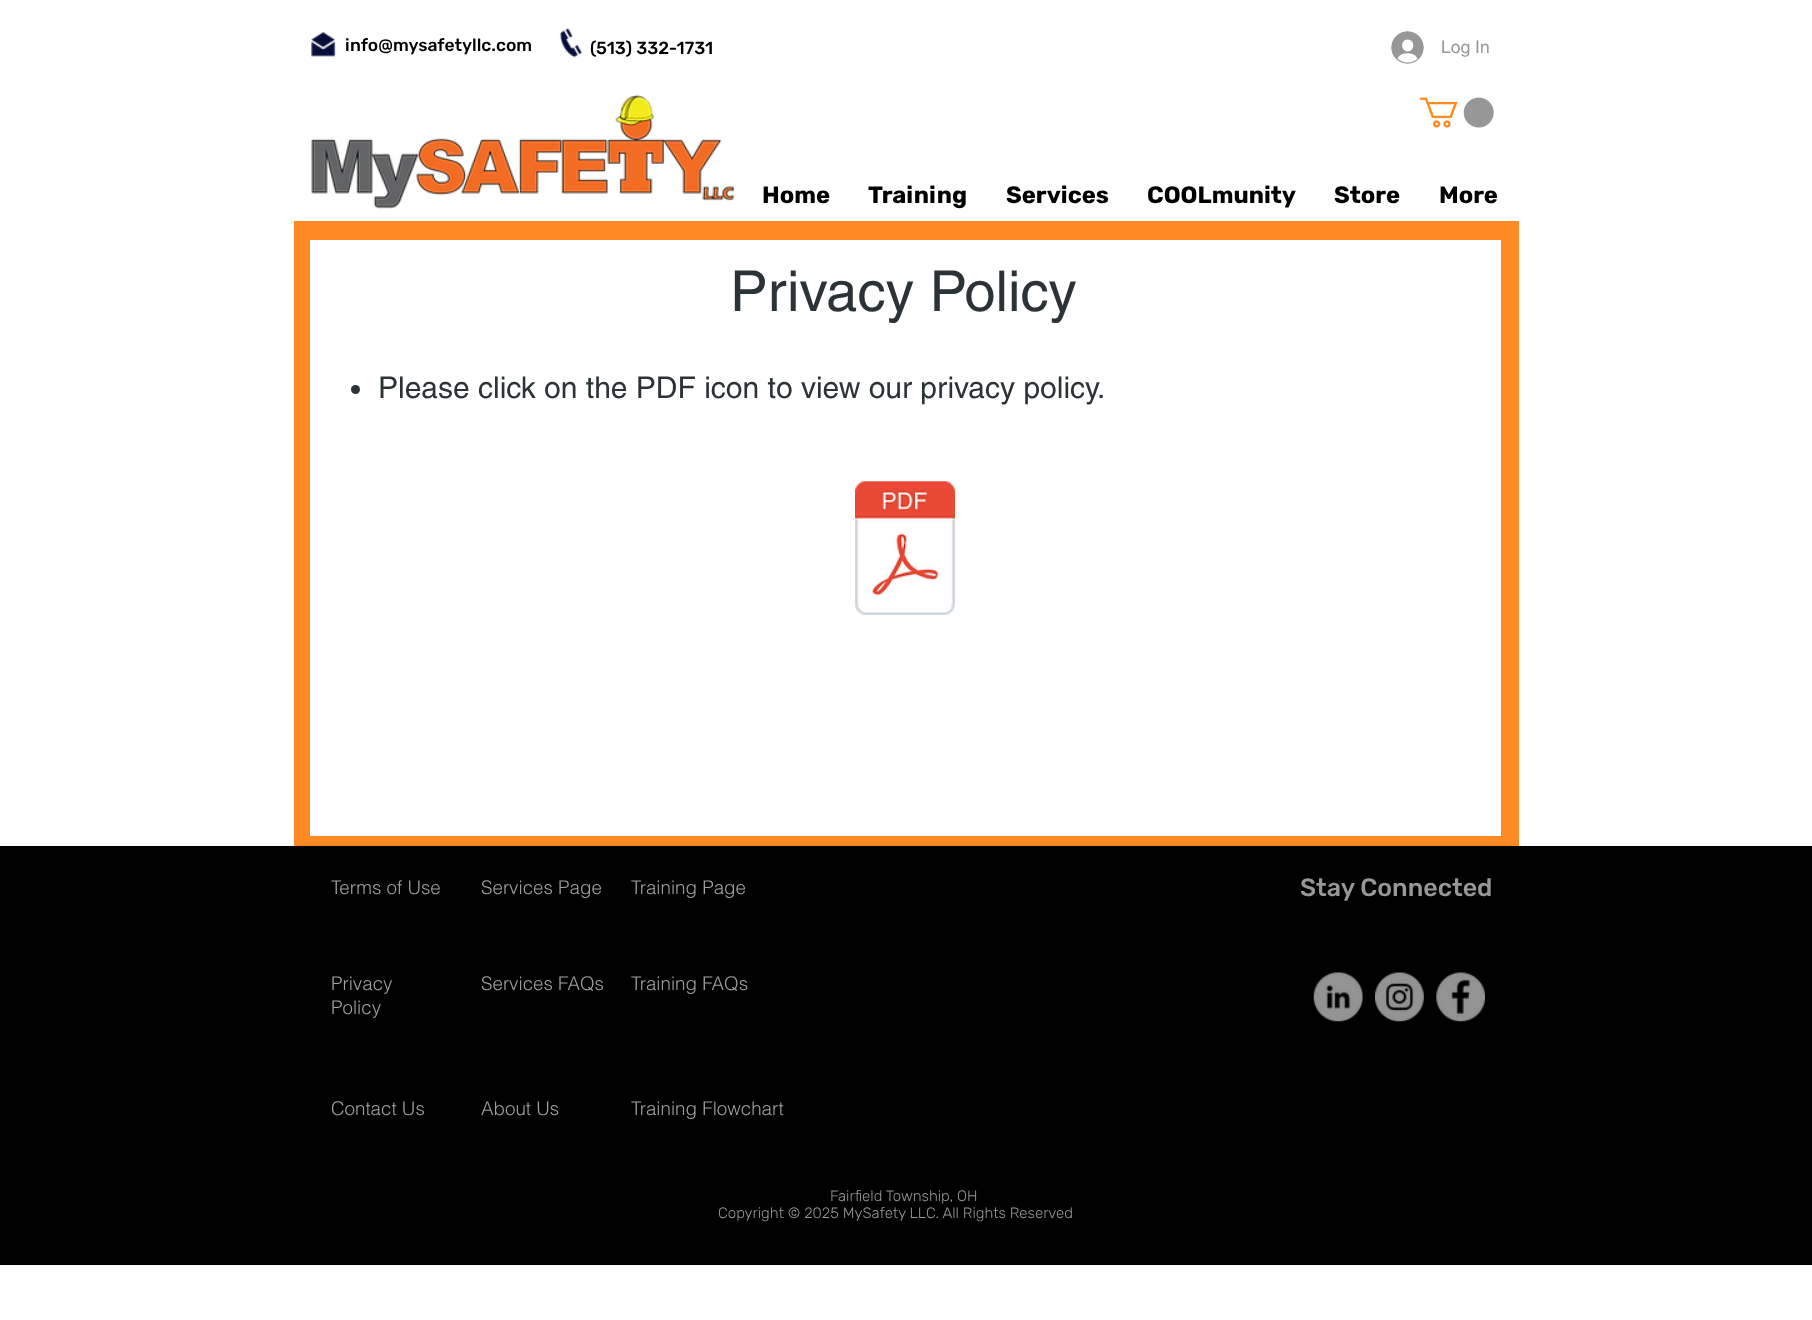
<?xml version="1.0" encoding="UTF-8"?>
<svg xmlns="http://www.w3.org/2000/svg" width="1812" height="1320">
    <rect width="100%" height="100%" fill="#FFFFFF"/>
    <image x="311" y="31" width="25" height="26" href="img_01.png"/>
    <text x="345" y="51" font-family="Rubik" font-size="17.5" font-weight="500" fill="#000000">info@mysafetyllc.com</text>
    <image x="559" y="28" width="23" height="30" href="img_02.png"/>
    <text x="590" y="54" font-family="Rubik" font-size="17.5" font-weight="500" fill="#000000">(513) 332-1731</text>
    <image x="1391" y="31" width="33" height="33" href="img_03.png"/>
    <text x="1441" y="53" font-family="helvetica" font-size="17.5" fill="#979797">Log In</text>
    <image x="311" y="95" width="423" height="114" href="img_04.png"/>
    <image x="1420" y="97" width="74" height="31" href="img_05.png"/>
    <text x="762" y="203" font-family="Rubik" font-size="23.75" font-weight="700" fill="#000000">Home</text>
    <text x="868" y="203" font-family="Rubik" font-size="23.75" font-weight="700" fill="#000000">Training</text>
    <text x="1006" y="203" font-family="Rubik" font-size="23.75" font-weight="700" fill="#000000">Services</text>
    <text x="1147" y="203" font-family="Rubik" font-size="23.75" font-weight="700" fill="#000000">COOLmunity</text>
    <text x="1334" y="203" font-family="Rubik" font-size="23.75" font-weight="700" fill="#000000">Store</text>
    <text x="1439" y="203" font-family="Rubik" font-size="23.75" font-weight="700" fill="#000000">More</text>
    <rect x="294" y="221" width="1225" height="625" fill="#FF8A24"/>
    <rect x="310" y="240" width="1191" height="596" fill="#FFFFFF"/>
    <text x="730" y="311" font-family="helvetica" font-size="56.25" fill="#2C3336">Privacy Policy</text>
    <circle cx="355.5" cy="389.5" r="4.5" fill="#2C3336"/>
    <text x="378" y="398" font-family="helvetica" font-size="30" fill="#2C3336">Please click on the PDF icon to view our privacy policy.</text>
    <image x="855" y="481" width="100" height="134" href="img_06.png"/>
    <rect x="0" y="846" width="1812" height="419" fill="#000000"/>
    <text x="331" y="894" font-family="helvetica" font-size="18.75" font-weight="300" fill="#A0A09F">Terms of Use</text>
    <text x="481" y="894" font-family="helvetica" font-size="18.75" font-weight="300" fill="#A0A09F">Services Page</text>
    <text x="631" y="894" font-family="helvetica" font-size="18.75" font-weight="300" fill="#A0A09F">Training Page</text>
    <text x="1300" y="896" font-family="Rubik" font-size="25" font-weight="500" fill="#979797">Stay Connected</text>
    <text font-family="helvetica" font-size="18.75" font-weight="300" fill="#A0A09F">
        <tspan x="331" y="990">Privacy</tspan>
        <tspan x="331" y="1014">Policy</tspan>
    </text>
    <text x="481" y="990" font-family="helvetica" font-size="18.75" font-weight="300" fill="#A0A09F">Services FAQs</text>
    <text x="631" y="990" font-family="helvetica" font-size="18.75" font-weight="300" fill="#A0A09F">Training FAQs</text>
    <image x="1313" y="972" width="50" height="50" href="img_07.png"/>
    <image x="1375" y="972" width="49" height="50" href="img_08.png"/>
    <image x="1436" y="972" width="49" height="50" href="img_09.png"/>
    <text x="331" y="1115" font-family="helvetica" font-size="18.75" font-weight="300" fill="#A0A09F">Contact Us</text>
    <text x="481" y="1115" font-family="helvetica" font-size="18.75" font-weight="300" fill="#A0A09F">About Us</text>
    <text x="631" y="1115" font-family="helvetica" font-size="18.75" font-weight="300" fill="#A0A09F">Training Flowchart</text>
    <text x="830" y="1201" font-family="Rubik" font-size="15" font-weight="300" fill="#979797">Fairfield Township, OH</text>
    <text x="718" y="1218" font-family="Rubik" font-size="15" font-weight="300" fill="#979797">Copyright © 2025 MySafety LLC. All Rights Reserved</text>
</svg>
